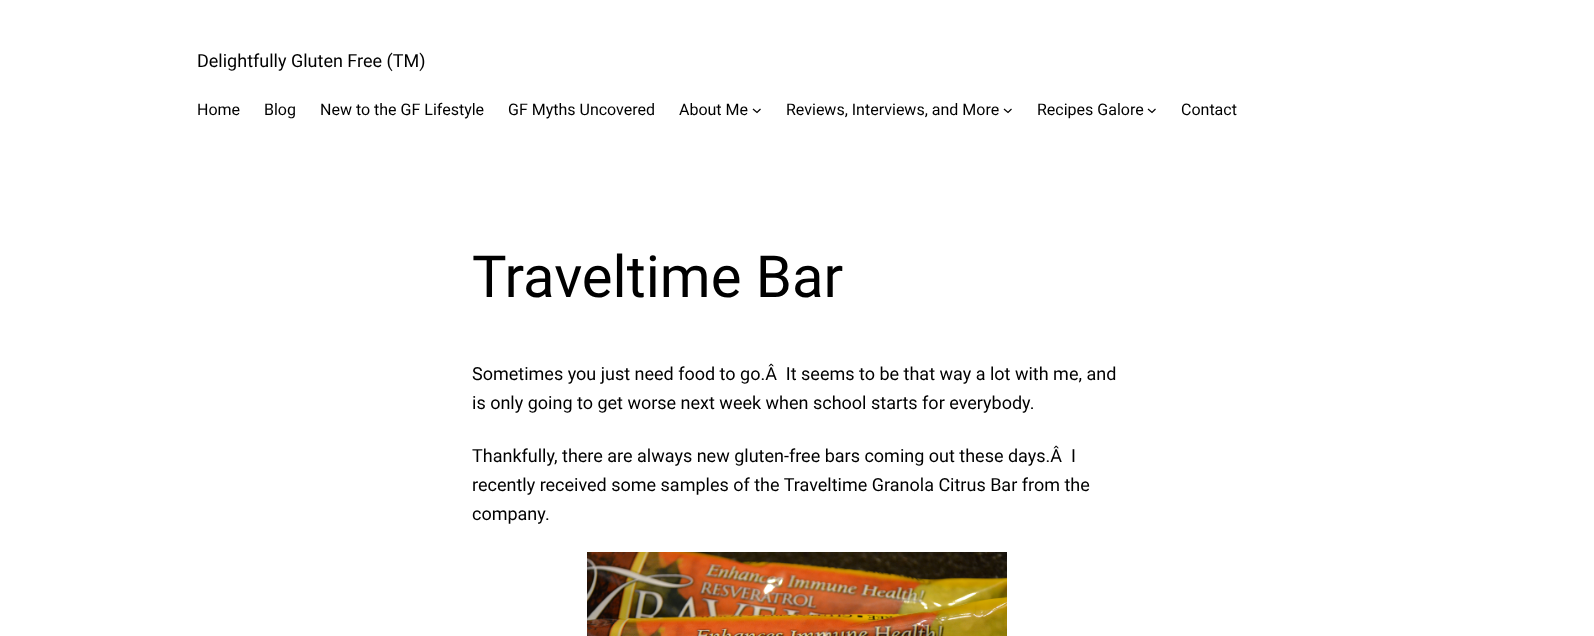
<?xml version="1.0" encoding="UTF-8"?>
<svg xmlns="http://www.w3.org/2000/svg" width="1594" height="636">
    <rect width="100%" height="100%" fill="#FFFFFF"/>
    <text x="197" y="67" font-family="Roboto" font-size="18" fill="#000000">Delightfully Gluten Free (TM)</text>
    <text x="197" y="115" font-family="Roboto" font-size="16" fill="#000000">Home</text>
    <text x="264" y="115" font-family="Roboto" font-size="16" fill="#000000">Blog</text>
    <text x="320" y="115" font-family="Roboto" font-size="16" fill="#000000">New to the GF Lifestyle</text>
    <text x="508" y="115" font-family="Roboto" font-size="16" fill="#000000">GF Myths Uncovered</text>
    <text x="679" y="115" font-family="Roboto" font-size="16" fill="#000000">About Me</text>
    <path d="M 753 109 L 757 112.5 L 760.5 109" fill="none" stroke="#000000" stroke-width="1.2"/>
    <text x="786" y="115" font-family="Roboto" font-size="16" fill="#000000">Reviews, Interviews, and More</text>
    <path d="M 1004 109 L 1008 112.5 L 1011.5 109" fill="none" stroke="#000000" stroke-width="1.2"/>
    <text x="1037" y="115" font-family="Roboto" font-size="16" fill="#000000">Recipes Galore</text>
    <path d="M 1148 109 L 1152 112.5 L 1155.5 109" fill="none" stroke="#000000" stroke-width="1.2"/>
    <text x="1181" y="115" font-family="Roboto" font-size="16" fill="#000000">Contact</text>
    <text x="472" y="297" font-family="Roboto" font-size="58" fill="#000000">Traveltime Bar</text>
    <text font-family="Roboto" font-size="18" fill="#000000" xml:space="preserve"><tspan x="472" y="380">Sometimes you just need food to go.Â  It seems to be that way a lot with me, and</tspan><tspan x="472" y="409">is only going to get worse next week when school starts for everybody.</tspan></text>
    <text font-family="Roboto" font-size="18" fill="#000000" xml:space="preserve"><tspan x="472" y="462">Thankfully, there are always new gluten-free bars coming out these days.Â  I</tspan><tspan x="472" y="491">recently received some samples of the Traveltime Granola Citrus Bar from the</tspan><tspan x="472" y="520">company.</tspan></text>
    <image x="587" y="552" width="420" height="84" href="img_01.png"/>
</svg>
